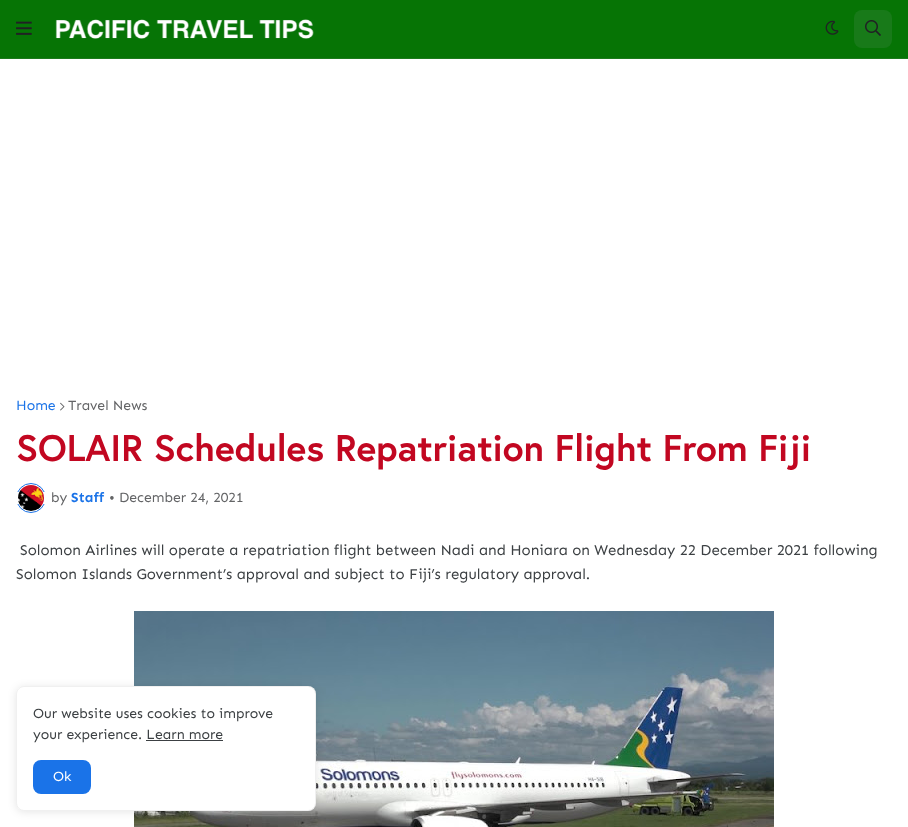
<?xml version="1.0" encoding="UTF-8"?>
<svg xmlns="http://www.w3.org/2000/svg" width="908" height="827">
    <defs>
        <filter id="blur1" x="-50%" y="-200%" width="200%" height="500%"><feGaussianBlur stdDeviation="4"/></filter>
    </defs>
    <rect width="100%" height="100%" fill="#FFFFFF"/>
    <rect x="0" y="0" width="908" height="58" fill="#067405"/>
    <rect x="0" y="58" width="908" height="1" fill="#1C7A1C"/>
    <image x="16" y="21" width="16" height="14" href="img_01.png"/>
    <image x="55" y="19" width="259" height="20" href="img_02.png"/>
    <image x="825" y="20" width="14" height="15" href="img_03.png"/>
    <rect x="854" y="10" width="38" height="38" rx="8" fill="#187A19"/>
    <image x="865" y="20" width="16" height="16" href="img_04.png"/>
    <text x="16" y="410" font-family="Sen" font-size="14" fill="#1A73E8">Home</text>
    <image x="60" y="402" width="5" height="9" href="img_05.png"/>
    <text x="68" y="410" font-family="Sen" font-size="14" fill="#636466">Travel News</text>
    <text x="16" y="461" font-family="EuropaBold" font-size="37" font-weight="700" fill="#C20721">SOLAIR Schedules Repatriation Flight From Fiji</text>
    <circle cx="31" cy="498" r="14.5" fill="none" stroke="#1A73E8"/>
    <rect x="16" y="492" width="30" height="12" fill="#FFFFFF"/>
    <image x="18" y="485" width="26" height="26" href="img_06.png"/>
    <text x="51" y="502" font-family="Sen" font-size="14" fill="#636466">by</text>
    <text x="71" y="502" font-family="Sen" font-size="14" font-weight="700" fill="#1A73E8">Staff</text>
    <text x="109" y="502" font-family="Sen" font-size="14" fill="#636466">• December 24, 2021</text>
    <text x="20" y="555" font-family="Sen" font-size="15" fill="#3C4043">Solomon Airlines will operate a repatriation flight between Nadi and Honiara on Wednesday 22 December 2021 following</text>
    <text x="16" y="579" font-family="Sen" font-size="15" fill="#3C4043">Solomon Islands Government’s approval and subject to Fiji’s regulatory approval.</text>
    <image x="134" y="611" width="640" height="216" href="img_07.png"/>
    <rect x="16" y="687" width="300" height="125" rx="8" fill="#000000" fill-opacity="0.1" filter="url(#blur1)"/>
    <rect x="16" y="686" width="300" height="125" rx="8" fill="#FFFFFF"/>
    <rect x="16.5" y="686.5" width="299" height="124" rx="7.5" fill="none" stroke="#9B9B9B" stroke-opacity="0.15"/>
    <text font-family="Sen" font-size="14" fill="#3C4043">
        <tspan x="33" y="718">Our website uses cookies to improve</tspan>
        <tspan x="33" y="739">your experience. Learn more</tspan>
    </text>
    <rect x="146" y="740" width="77" height="1" fill="#3C4043"/>
    <rect x="33" y="760" width="58" height="34" rx="8" fill="#1A73E8"/>
    <text x="53" y="781" font-family="Sen" font-size="14" fill="#FFFFFF">Ok</text>
</svg>
